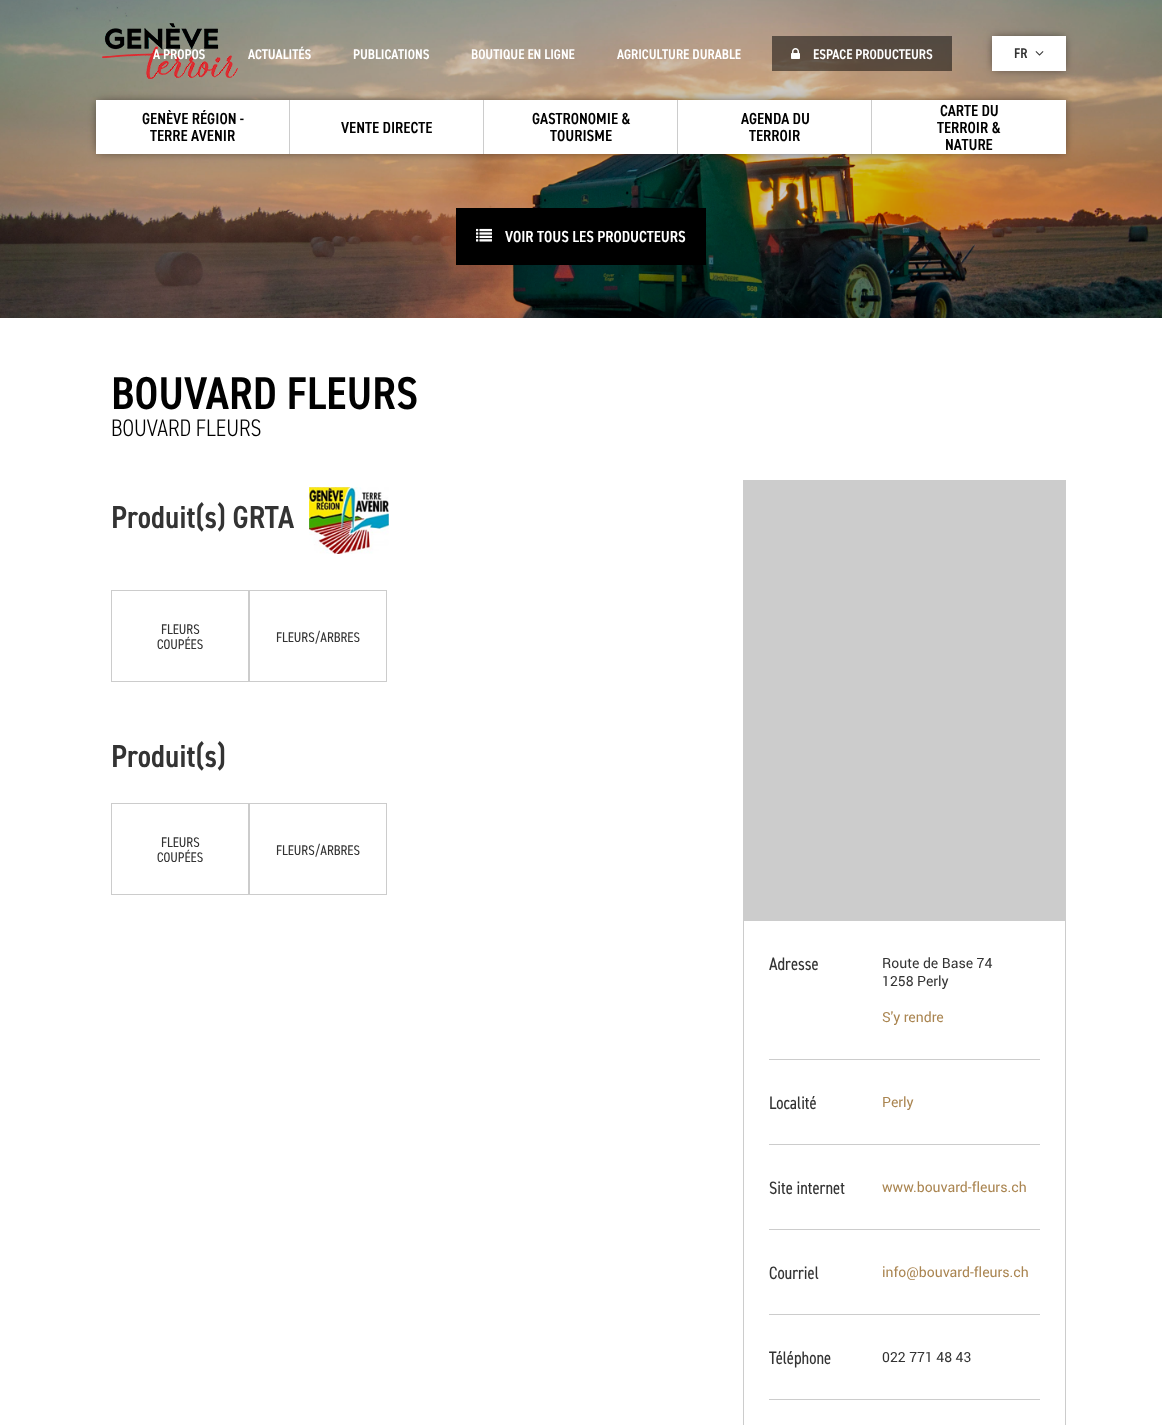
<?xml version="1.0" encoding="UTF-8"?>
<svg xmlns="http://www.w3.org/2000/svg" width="1162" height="1425">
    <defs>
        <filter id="blur1" x="-50%" y="-200%" width="200%" height="500%"><feGaussianBlur stdDeviation="5"/></filter>
    </defs>
    <rect width="100%" height="100%" fill="#FFFFFF"/>
    <image x="0" y="0" width="1162" height="318" href="img_04.png"/>
    <image x="102" y="23" width="136" height="56" href="img_01.png"/>
    <text x="153" y="59" font-family="'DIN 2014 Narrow'" font-size="14" font-weight="600" fill="#FFFFFF">A PROPOS</text>
    <text x="248" y="59" font-family="'DIN 2014 Narrow'" font-size="14" font-weight="600" fill="#FFFFFF">ACTUALITÉS</text>
    <text x="353" y="59" font-family="'DIN 2014 Narrow'" font-size="14" font-weight="600" fill="#FFFFFF">PUBLICATIONS</text>
    <text x="471" y="59" font-family="'DIN 2014 Narrow'" font-size="14" font-weight="600" fill="#FFFFFF">BOUTIQUE EN LIGNE</text>
    <text x="617" y="59" font-family="'DIN 2014 Narrow'" font-size="14" font-weight="600" fill="#FFFFFF">AGRICULTURE DURABLE</text>
    <rect x="772" y="36" width="180" height="35" fill="#000000" fill-opacity="0.5"/>
    <image x="791" y="48" width="9" height="11" href="img_02.png"/>
    <text x="813" y="59" font-family="'DIN 2014 Narrow'" font-size="14" font-weight="600" fill="#FFFFFF">ESPACE PRODUCTEURS</text>
    <rect x="994" y="38" width="70" height="31" fill="#000000" fill-opacity="0.6" filter="url(#blur1)"/>
    <rect x="992" y="36" width="74" height="35" fill="#FFFFFF"/>
    <text x="1014" y="58" font-family="'DIN 2014 Narrow'" font-size="14" font-weight="600" fill="#333333">FR</text>
    <image x="1035" y="51" width="9" height="5" href="img_03.png"/>
    <rect x="98" y="102" width="966" height="50" fill="#000000" fill-opacity="0.6" filter="url(#blur1)"/>
    <rect x="96" y="100" width="970" height="54" fill="#FFFFFF"/>
    <text x="142" y="124" font-family="'DIN 2014 Narrow'" font-size="16" font-weight="600" fill="#010101">GENÈVE RÉGION -</text>
    <text x="150" y="141" font-family="'DIN 2014 Narrow'" font-size="16" font-weight="600" fill="#010101">TERRE AVENIR</text>
    <rect x="289" y="100" width="1" height="54" fill="#CCCCCC"/>
    <text x="341" y="133" font-family="'DIN 2014 Narrow'" font-size="16" font-weight="600" fill="#010101">VENTE DIRECTE</text>
    <rect x="483" y="100" width="1" height="54" fill="#CCCCCC"/>
    <text x="532" y="124" font-family="'DIN 2014 Narrow'" font-size="16" font-weight="600" fill="#010101">GASTRONOMIE &amp;</text>
    <text x="550" y="141" font-family="'DIN 2014 Narrow'" font-size="16" font-weight="600" fill="#010101">TOURISME</text>
    <rect x="677" y="100" width="1" height="54" fill="#CCCCCC"/>
    <text x="741" y="124" font-family="'DIN 2014 Narrow'" font-size="16" font-weight="600" fill="#010101">AGENDA DU</text>
    <text x="749" y="141" font-family="'DIN 2014 Narrow'" font-size="16" font-weight="600" fill="#010101">TERROIR</text>
    <rect x="871" y="100" width="1" height="54" fill="#CCCCCC"/>
    <text x="940" y="116" font-family="'DIN 2014 Narrow'" font-size="16" font-weight="600" fill="#010101">CARTE DU</text>
    <text x="937" y="133" font-family="'DIN 2014 Narrow'" font-size="16" font-weight="600" fill="#010101">TERROIR &amp;</text>
    <text x="945" y="150" font-family="'DIN 2014 Narrow'" font-size="16" font-weight="600" fill="#010101">NATURE</text>
    <rect x="456" y="208" width="250" height="57" fill="#000000"/>
    <image x="476" y="228" width="16" height="14" href="img_05.png"/>
    <text x="505" y="242" font-family="'DIN 2014 Narrow'" font-size="16" font-weight="600" fill="#FFFFFF">VOIR TOUS LES PRODUCTEURS</text>
    <text x="111" y="409" font-family="'DIN 2014 Narrow'" font-size="46" font-weight="600" fill="#010101">BOUVARD FLEURS</text>
    <text x="111" y="436" font-family="'DIN 2014 Narrow'" font-size="24" font-weight="300" fill="#010101">BOUVARD FLEURS</text>
    <text x="111" y="528" font-family="'DIN 2014 Narrow'" font-size="32" font-weight="600" fill="#333333">Produit(s) GRTA</text>
    <image x="309" y="487" width="80" height="67" href="img_06.png"/>
    <rect x="111.5" y="590.5" width="137" height="91" fill="none" stroke="#CCCCCC"/>
    <text x="161" y="634" font-family="'DIN 2014 Narrow'" font-size="14" fill="#333333">FLEURS</text>
    <text x="157" y="649" font-family="'DIN 2014 Narrow'" font-size="14" fill="#333333">COUPÉES</text>
    <rect x="249.5" y="590.5" width="137" height="91" fill="none" stroke="#CCCCCC"/>
    <text x="276" y="642" font-family="'DIN 2014 Narrow'" font-size="14" fill="#333333">FLEURS/ARBRES</text>
    <text x="111" y="767" font-family="'DIN 2014 Narrow'" font-size="32" font-weight="600" fill="#333333">Produit(s)</text>
    <rect x="111.5" y="803.5" width="137" height="91" fill="none" stroke="#CCCCCC"/>
    <text x="161" y="847" font-family="'DIN 2014 Narrow'" font-size="14" fill="#333333">FLEURS</text>
    <text x="157" y="862" font-family="'DIN 2014 Narrow'" font-size="14" fill="#333333">COUPÉES</text>
    <rect x="249.5" y="803.5" width="137" height="91" fill="none" stroke="#CCCCCC"/>
    <text x="276" y="855" font-family="'DIN 2014 Narrow'" font-size="14" fill="#333333">FLEURS/ARBRES</text>
    <rect x="743.5" y="480.5" width="322" height="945" fill="none" stroke="#CCCCCC"/>
    <rect x="744" y="481" width="321" height="440" fill="#CCCCCC"/>
    <rect x="769" y="1059" width="271" height="1" fill="#CCCCCC"/>
    <text x="769" y="970" font-family="'DIN 2014 Narrow'" font-size="18" fill="#333333">Adresse</text>
    <text font-family="Roboto" font-size="14" fill="#333333">
        <tspan x="882" y="968">Route de Base 74</tspan>
        <tspan x="882" y="986">1258 Perly</tspan>
    </text>
    <text x="882" y="1022" font-family="Roboto" font-size="14" fill="#AA8551">S'y rendre</text>
    <rect x="769" y="1144" width="271" height="1" fill="#CCCCCC"/>
    <text x="769" y="1109" font-family="'DIN 2014 Narrow'" font-size="18" fill="#333333">Localité</text>
    <text x="882" y="1107" font-family="Roboto" font-size="14" fill="#AA8551">Perly</text>
    <rect x="769" y="1229" width="271" height="1" fill="#CCCCCC"/>
    <text x="769" y="1194" font-family="'DIN 2014 Narrow'" font-size="18" fill="#333333">Site internet</text>
    <text x="882" y="1192" font-family="Roboto" font-size="14" fill="#AA8551">www.bouvard-fleurs.ch</text>
    <rect x="769" y="1314" width="271" height="1" fill="#CCCCCC"/>
    <text x="769" y="1279" font-family="'DIN 2014 Narrow'" font-size="18" fill="#333333">Courriel</text>
    <text x="882" y="1277" font-family="Roboto" font-size="14" fill="#AA8551">info@bouvard-fleurs.ch</text>
    <rect x="769" y="1399" width="271" height="1" fill="#CCCCCC"/>
    <text x="769" y="1364" font-family="'DIN 2014 Narrow'" font-size="18" fill="#333333">Téléphone</text>
    <text x="882" y="1362" font-family="Roboto" font-size="14" fill="#333333">022 771 48 43</text>
</svg>
